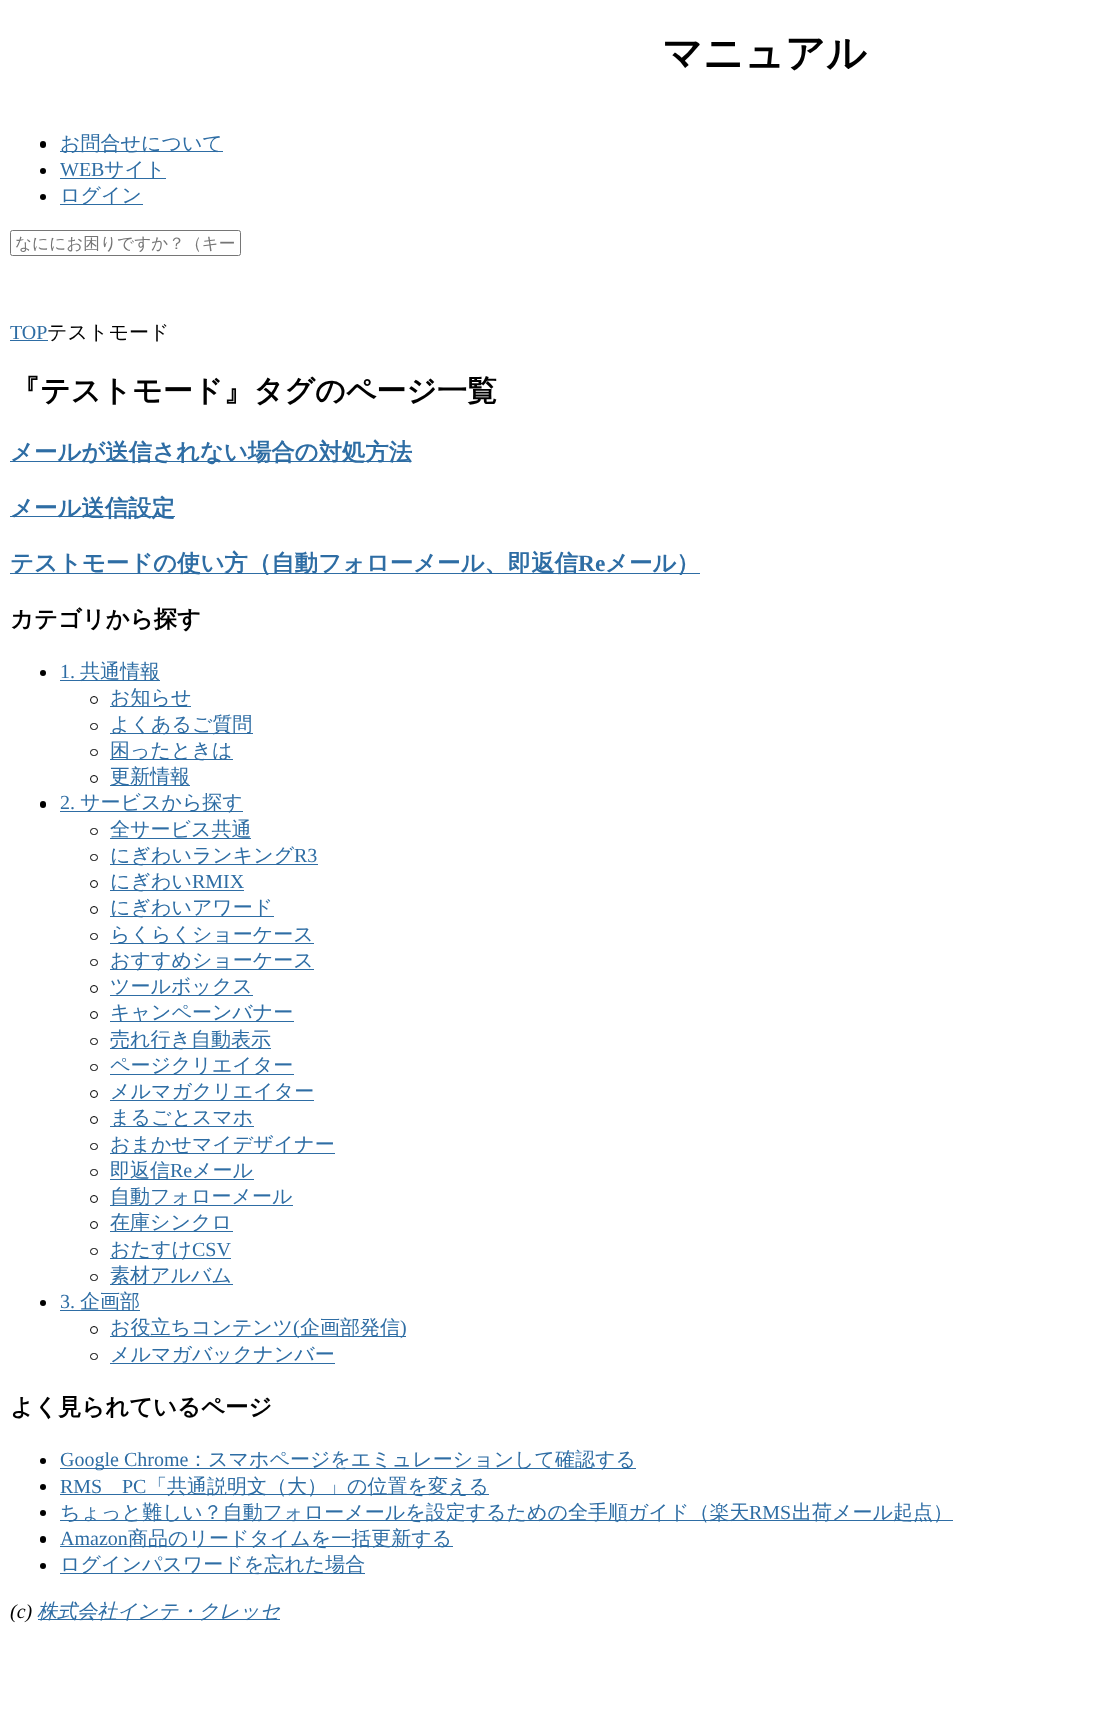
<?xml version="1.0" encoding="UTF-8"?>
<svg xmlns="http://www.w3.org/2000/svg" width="1111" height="1723">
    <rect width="100%" height="100%" fill="#FFFFFF"/>
    <text x="662" y="67" font-family="WenQuanYi Zen Hei" font-size="40" font-weight="700" fill="#000000">マニュアル</text>
    <rect x="40" y="141" width="6" height="7" rx="3" fill="#000000"/>
    <rect x="60" y="151" width="163" height="1" fill="#2E6DA4"/>
    <text x="60" y="150" font-family="WenQuanYi Zen Hei" font-size="20" font-weight="500" fill="#2E6DA4">お問合せについて</text>
    <circle cx="43" cy="171" r="3" fill="#000000"/>
    <text x="60" y="176" font-family="Liberation Serif" font-size="20" fill="#2E6DA4">WEB</text>
    <rect x="60" y="178" width="106" height="1" fill="#2E6DA4"/>
    <text x="104" y="176" font-family="WenQuanYi Zen Hei" font-size="20" font-weight="500" fill="#2E6DA4">サイト</text>
    <circle cx="43" cy="197" r="3" fill="#000000"/>
    <rect x="60" y="204" width="83" height="1" fill="#2E6DA4"/>
    <text x="60" y="202" font-family="WenQuanYi Zen Hei" font-size="20" font-weight="500" fill="#2E6DA4">ログイン</text>
    <rect x="10.5" y="230.5" width="230" height="25" rx="2" fill="none" stroke="#767676"/>
    <text x="15" y="249" font-family="WenQuanYi Zen Hei" font-size="16.7" font-weight="500" fill="#757575">なににお困りですか？（キー</text>
    <text x="10" y="339" font-family="Liberation Serif" font-size="20" fill="#2E6DA4">TOP</text>
    <rect x="10" y="340" width="38" height="1" fill="#2E6DA4"/>
    <text x="47" y="339" font-family="WenQuanYi Zen Hei" font-size="20" font-weight="500" fill="#000000">テストモード</text>
    <text x="10" y="401" font-family="WenQuanYi Zen Hei" font-size="30" font-weight="700" fill="#000000">『テストモード』タグのページ一覧</text>
    <rect x="10" y="461" width="401" height="1" fill="#2E6DA4"/>
    <text x="10" y="460" font-family="WenQuanYi Zen Hei" font-size="23.4" font-weight="700" fill="#2E6DA4">メールが送信されない場合の対処方法</text>
    <rect x="10" y="516" width="165" height="1" fill="#2E6DA4"/>
    <text x="10" y="516" font-family="WenQuanYi Zen Hei" font-size="23.4" font-weight="700" fill="#2E6DA4">メール送信設定</text>
    <rect x="10" y="573" width="690" height="1" fill="#2E6DA4"/>
    <text x="10" y="571" font-family="WenQuanYi Zen Hei" font-size="23.4" font-weight="700" fill="#2E6DA4">テストモードの使い方（自動フォローメール、即返信</text>
    <text x="578" y="571" font-family="Liberation Serif" font-size="23.4" font-weight="700" fill="#2E6DA4">Re</text>
    <text x="605" y="571" font-family="WenQuanYi Zen Hei" font-size="23.4" font-weight="700" fill="#2E6DA4">メール）</text>
    <text x="10" y="627" font-family="WenQuanYi Zen Hei" font-size="23.4" font-weight="700" fill="#000000">カテゴリから探す</text>
    <circle cx="43" cy="673" r="3" fill="#000000"/>
    <text x="60" y="678" font-family="Liberation Serif" font-size="20" fill="#2E6DA4">1.</text>
    <rect x="60" y="680" width="100" height="1" fill="#2E6DA4"/>
    <text x="80" y="678" font-family="WenQuanYi Zen Hei" font-size="20" font-weight="500" fill="#2E6DA4">共通情報</text>
    <circle cx="94" cy="700" r="3.5" fill="none" stroke="#000000"/>
    <rect x="110" y="706" width="81" height="1" fill="#2E6DA4"/>
    <text x="110" y="704" font-family="WenQuanYi Zen Hei" font-size="20" font-weight="500" fill="#2E6DA4">お知らせ</text>
    <rect x="90.5" y="723.5" width="7" height="6" rx="3" fill="none" stroke="#000000"/>
    <rect x="110" y="733" width="143" height="1" fill="#2E6DA4"/>
    <text x="110" y="731" font-family="WenQuanYi Zen Hei" font-size="20" font-weight="500" fill="#2E6DA4">よくあるご質問</text>
    <rect x="90.5" y="749.5" width="7" height="6" rx="3" fill="none" stroke="#000000"/>
    <rect x="110" y="759" width="123" height="1" fill="#2E6DA4"/>
    <text x="110" y="757" font-family="WenQuanYi Zen Hei" font-size="20" font-weight="500" fill="#2E6DA4">困ったときは</text>
    <circle cx="94" cy="779" r="3.5" fill="none" stroke="#000000"/>
    <rect x="110" y="785" width="80" height="1" fill="#2E6DA4"/>
    <text x="110" y="783" font-family="WenQuanYi Zen Hei" font-size="20" font-weight="500" fill="#2E6DA4">更新情報</text>
    <rect x="40" y="801" width="6" height="7" rx="3" fill="#000000"/>
    <text x="60" y="809" font-family="Liberation Serif" font-size="20" fill="#2E6DA4">2.</text>
    <rect x="60" y="811" width="183" height="1" fill="#2E6DA4"/>
    <text x="80" y="809" font-family="WenQuanYi Zen Hei" font-size="20" font-weight="500" fill="#2E6DA4">サービスから探す</text>
    <rect x="90.5" y="828.5" width="7" height="6" rx="3" fill="none" stroke="#000000"/>
    <rect x="110" y="838" width="141" height="1" fill="#2E6DA4"/>
    <text x="110" y="836" font-family="WenQuanYi Zen Hei" font-size="20" font-weight="500" fill="#2E6DA4">全サービス共通</text>
    <rect x="90.5" y="854.5" width="7" height="6" rx="3" fill="none" stroke="#000000"/>
    <rect x="110" y="864" width="208" height="1" fill="#2E6DA4"/>
    <text x="110" y="862" font-family="WenQuanYi Zen Hei" font-size="20" font-weight="500" fill="#2E6DA4">にぎわいランキング</text>
    <text x="294" y="862" font-family="Liberation Serif" font-size="20" fill="#2E6DA4">R3</text>
    <circle cx="94" cy="884" r="3.5" fill="none" stroke="#000000"/>
    <rect x="110" y="890" width="134" height="1" fill="#2E6DA4"/>
    <text x="110" y="888" font-family="WenQuanYi Zen Hei" font-size="20" font-weight="500" fill="#2E6DA4">にぎわい</text>
    <text x="192" y="888" font-family="Liberation Serif" font-size="20" fill="#2E6DA4">RMIX</text>
    <circle cx="94" cy="910" r="3.5" fill="none" stroke="#000000"/>
    <rect x="110" y="916" width="164" height="1" fill="#2E6DA4"/>
    <text x="110" y="914" font-family="WenQuanYi Zen Hei" font-size="20" font-weight="500" fill="#2E6DA4">にぎわいアワード</text>
    <rect x="90.5" y="933.5" width="7" height="6" rx="3" fill="none" stroke="#000000"/>
    <rect x="110" y="943" width="204" height="1" fill="#2E6DA4"/>
    <text x="110" y="941" font-family="WenQuanYi Zen Hei" font-size="20" font-weight="500" fill="#2E6DA4">らくらくショーケース</text>
    <rect x="90.5" y="959.5" width="7" height="6" rx="3" fill="none" stroke="#000000"/>
    <rect x="110" y="969" width="204" height="1" fill="#2E6DA4"/>
    <text x="110" y="967" font-family="WenQuanYi Zen Hei" font-size="20" font-weight="500" fill="#2E6DA4">おすすめショーケース</text>
    <circle cx="94" cy="989" r="3.5" fill="none" stroke="#000000"/>
    <rect x="110" y="995" width="143" height="1" fill="#2E6DA4"/>
    <text x="110" y="993" font-family="WenQuanYi Zen Hei" font-size="20" font-weight="500" fill="#2E6DA4">ツールボックス</text>
    <circle cx="94" cy="1015" r="3.5" fill="none" stroke="#000000"/>
    <rect x="110" y="1021" width="184" height="1" fill="#2E6DA4"/>
    <text x="110" y="1019" font-family="WenQuanYi Zen Hei" font-size="20" font-weight="500" fill="#2E6DA4">キャンペーンバナー</text>
    <rect x="90.5" y="1038.5" width="7" height="6" rx="3" fill="none" stroke="#000000"/>
    <rect x="110" y="1048" width="161" height="1" fill="#2E6DA4"/>
    <text x="110" y="1046" font-family="WenQuanYi Zen Hei" font-size="20" font-weight="500" fill="#2E6DA4">売れ行き自動表示</text>
    <rect x="90.5" y="1064.5" width="7" height="6" rx="3" fill="none" stroke="#000000"/>
    <rect x="110" y="1074" width="184" height="1" fill="#2E6DA4"/>
    <text x="110" y="1072" font-family="WenQuanYi Zen Hei" font-size="20" font-weight="500" fill="#2E6DA4">ページクリエイター</text>
    <circle cx="94" cy="1094" r="3.5" fill="none" stroke="#000000"/>
    <rect x="110" y="1100" width="204" height="1" fill="#2E6DA4"/>
    <text x="110" y="1098" font-family="WenQuanYi Zen Hei" font-size="20" font-weight="500" fill="#2E6DA4">メルマガクリエイター</text>
    <circle cx="94" cy="1120" r="3.5" fill="none" stroke="#000000"/>
    <rect x="110" y="1126" width="144" height="1" fill="#2E6DA4"/>
    <text x="110" y="1124" font-family="WenQuanYi Zen Hei" font-size="20" font-weight="500" fill="#2E6DA4">まるごとスマホ</text>
    <rect x="90.5" y="1143.5" width="7" height="6" rx="3" fill="none" stroke="#000000"/>
    <rect x="110" y="1153" width="225" height="1" fill="#2E6DA4"/>
    <text x="110" y="1151" font-family="WenQuanYi Zen Hei" font-size="20" font-weight="500" fill="#2E6DA4">おまかせマイデザイナー</text>
    <rect x="90.5" y="1169.5" width="7" height="6" rx="3" fill="none" stroke="#000000"/>
    <rect x="110" y="1179" width="144" height="1" fill="#2E6DA4"/>
    <text x="110" y="1177" font-family="WenQuanYi Zen Hei" font-size="20" font-weight="500" fill="#2E6DA4">即返信</text>
    <text x="170" y="1177" font-family="Liberation Serif" font-size="20" fill="#2E6DA4">Re</text>
    <text x="192" y="1177" font-family="WenQuanYi Zen Hei" font-size="20" font-weight="500" fill="#2E6DA4">メール</text>
    <circle cx="94" cy="1199" r="3.5" fill="none" stroke="#000000"/>
    <rect x="110" y="1205" width="183" height="1" fill="#2E6DA4"/>
    <text x="110" y="1203" font-family="WenQuanYi Zen Hei" font-size="20" font-weight="500" fill="#2E6DA4">自動フォローメール</text>
    <circle cx="94" cy="1225" r="3.5" fill="none" stroke="#000000"/>
    <rect x="110" y="1231" width="123" height="1" fill="#2E6DA4"/>
    <text x="110" y="1229" font-family="WenQuanYi Zen Hei" font-size="20" font-weight="500" fill="#2E6DA4">在庫シンクロ</text>
    <rect x="90.5" y="1248.5" width="7" height="6" rx="3" fill="none" stroke="#000000"/>
    <rect x="110" y="1258" width="121" height="1" fill="#2E6DA4"/>
    <text x="110" y="1256" font-family="WenQuanYi Zen Hei" font-size="20" font-weight="500" fill="#2E6DA4">おたすけ</text>
    <text x="192" y="1256" font-family="Liberation Serif" font-size="20" fill="#2E6DA4">CSV</text>
    <rect x="90.5" y="1274.5" width="7" height="6" rx="3" fill="none" stroke="#000000"/>
    <rect x="110" y="1284" width="123" height="1" fill="#2E6DA4"/>
    <text x="110" y="1282" font-family="WenQuanYi Zen Hei" font-size="20" font-weight="500" fill="#2E6DA4">素材アルバム</text>
    <circle cx="43" cy="1303" r="3" fill="#000000"/>
    <text x="60" y="1308" font-family="Liberation Serif" font-size="20" fill="#2E6DA4">3.</text>
    <rect x="60" y="1310" width="80" height="1" fill="#2E6DA4"/>
    <text x="80" y="1308" font-family="WenQuanYi Zen Hei" font-size="20" font-weight="500" fill="#2E6DA4">企画部</text>
    <circle cx="94" cy="1330" r="3.5" fill="none" stroke="#000000"/>
    <rect x="110" y="1336" width="296" height="1" fill="#2E6DA4"/>
    <text x="110" y="1334" font-family="WenQuanYi Zen Hei" font-size="20" font-weight="500" fill="#2E6DA4">お役立ちコンテンツ</text>
    <text x="293" y="1334" font-family="Liberation Serif" font-size="20" fill="#2E6DA4">(</text>
    <text x="300" y="1334" font-family="WenQuanYi Zen Hei" font-size="20" font-weight="500" fill="#2E6DA4">企画部発信</text>
    <text x="400" y="1334" font-family="Liberation Serif" font-size="20" fill="#2E6DA4">)</text>
    <rect x="90.5" y="1353.5" width="7" height="6" rx="3" fill="none" stroke="#000000"/>
    <rect x="110" y="1363" width="225" height="1" fill="#2E6DA4"/>
    <text x="110" y="1361" font-family="WenQuanYi Zen Hei" font-size="20" font-weight="500" fill="#2E6DA4">メルマガバックナンバー</text>
    <text x="10" y="1415" font-family="WenQuanYi Zen Hei" font-size="23.4" font-weight="700" fill="#000000">よく見られているページ</text>
    <circle cx="43" cy="1461" r="3" fill="#000000"/>
    <rect x="60" y="1468" width="576" height="1" fill="#2E6DA4"/>
    <text x="60" y="1466" font-family="Liberation Serif" font-size="20" fill="#2E6DA4">Google Chrome</text>
    <text x="188" y="1466" font-family="WenQuanYi Zen Hei" font-size="20" font-weight="500" fill="#2E6DA4">：スマホページをエミュレーションして確認する</text>
    <circle cx="43" cy="1487" r="3" fill="#000000"/>
    <text x="60" y="1493" font-family="Liberation Serif" font-size="20" fill="#2E6DA4">RMS</text>
    <rect x="60" y="1494" width="429" height="1" fill="#2E6DA4"/>
    <text x="122" y="1493" font-family="Liberation Serif" font-size="20" fill="#2E6DA4">PC</text>
    <text x="147" y="1493" font-family="WenQuanYi Zen Hei" font-size="20" font-weight="500" fill="#2E6DA4">「共通説明文（大）」の位置を変える</text>
    <circle cx="43" cy="1513" r="3" fill="#000000"/>
    <rect x="60" y="1520" width="893" height="1" fill="#2E6DA4"/>
    <text x="60" y="1519" font-family="WenQuanYi Zen Hei" font-size="20" font-weight="500" fill="#2E6DA4">ちょっと難しい？自動フォローメールを設定するための全手順ガイド（楽天</text>
    <text x="749" y="1519" font-family="Liberation Serif" font-size="20" fill="#2E6DA4">RMS</text>
    <text x="792" y="1519" font-family="WenQuanYi Zen Hei" font-size="20" font-weight="500" fill="#2E6DA4">出荷メール起点）</text>
    <rect x="40" y="1536" width="6" height="7" rx="3" fill="#000000"/>
    <text x="60" y="1545" font-family="Liberation Serif" font-size="20" fill="#2E6DA4">Amazon</text>
    <rect x="60" y="1546" width="393" height="1" fill="#2E6DA4"/>
    <text x="128" y="1545" font-family="WenQuanYi Zen Hei" font-size="20" font-weight="500" fill="#2E6DA4">商品のリードタイムを一括更新する</text>
    <circle cx="43" cy="1566" r="3" fill="#000000"/>
    <rect x="60" y="1573" width="305" height="1" fill="#2E6DA4"/>
    <text x="60" y="1571" font-family="WenQuanYi Zen Hei" font-size="20" font-weight="500" fill="#2E6DA4">ログインパスワードを忘れた場合</text>
    <text x="10" y="1618" font-family="Liberation Serif" font-size="20" font-style="italic" fill="#000000">(c)</text>
    <rect x="38" y="1619" width="242" height="1" fill="#2E6DA4"/>
    <text x="37" y="1618" font-family="WenQuanYi Zen Hei" font-size="20" font-weight="500" font-style="italic" fill="#2E6DA4">株式会社インテ・クレッセ</text>
</svg>
